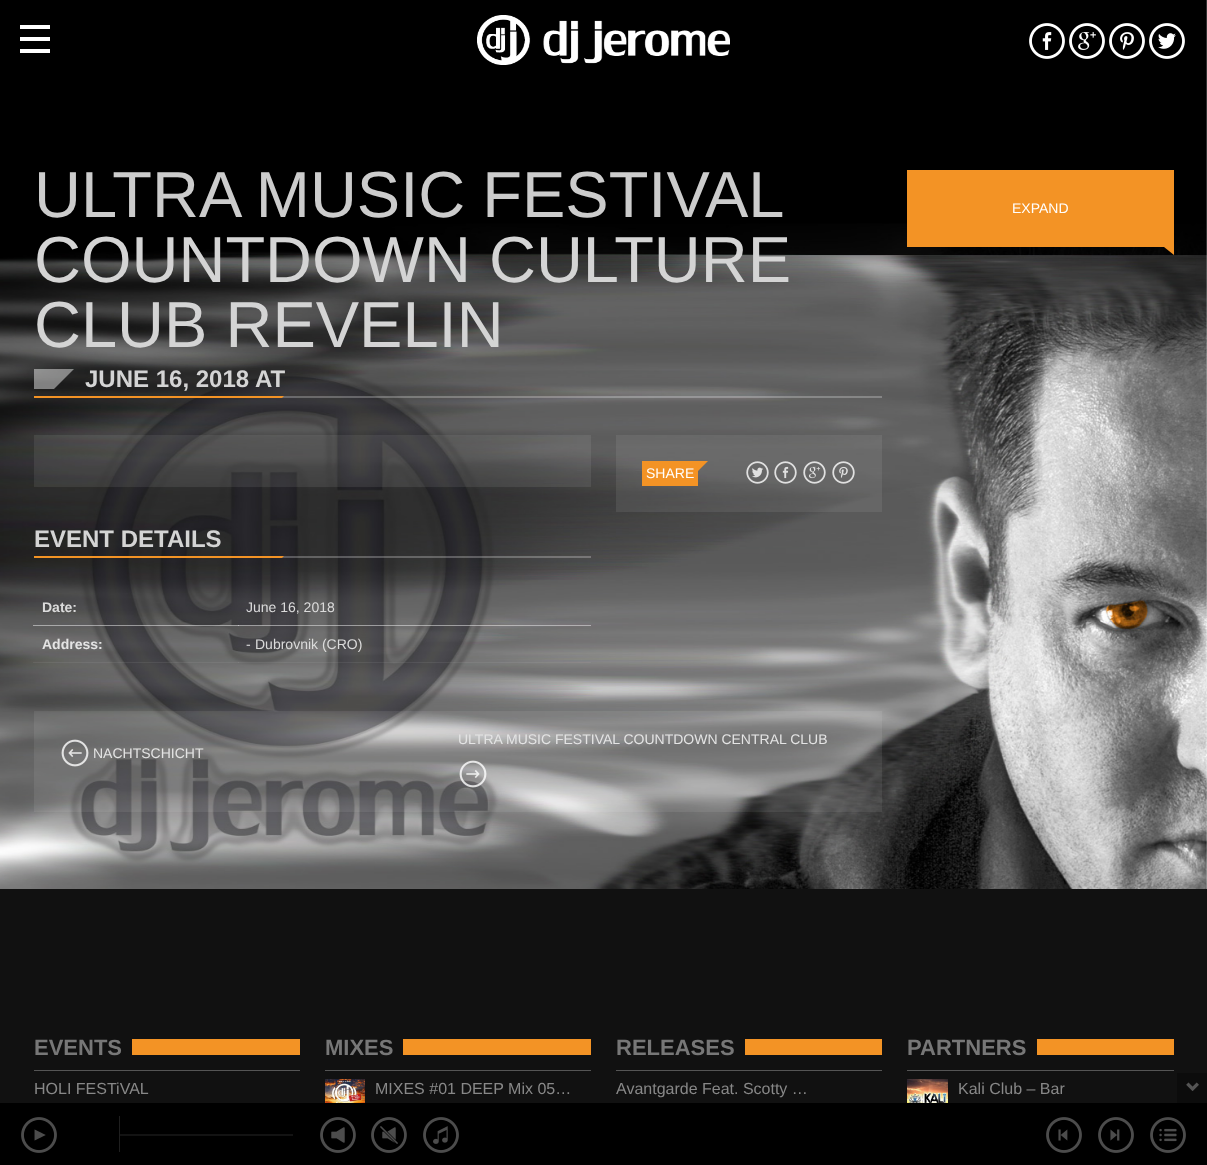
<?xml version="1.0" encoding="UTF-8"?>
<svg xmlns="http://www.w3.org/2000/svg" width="1207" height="1165">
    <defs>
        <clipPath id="clip1"><rect x="34" y="396" width="848" height="2"/></clipPath>
        <clipPath id="clip2"><rect x="34" y="556" width="557" height="2"/></clipPath>
    </defs>
    <rect width="100%" height="100%" fill="#FFFFFF"/>
    <image x="0" y="0" width="1207" height="889" href="img_01.png"/>
    <rect x="20" y="25" width="30" height="4" fill="#FFFFFF"/>
    <rect x="20" y="37" width="30" height="4" fill="#FFFFFF"/>
    <rect x="20" y="49" width="30" height="4" fill="#FFFFFF"/>
    <image x="477" y="15" width="253" height="50" href="img_02.png"/>
    <image x="1029" y="23" width="36" height="36" href="img_03.png"/>
    <image x="1069" y="23" width="36" height="36" href="img_04.png"/>
    <image x="1109" y="23" width="36" height="36" href="img_05.png"/>
    <image x="1149" y="23" width="36" height="36" href="img_06.png"/>
    <text x="34" y="217" word-spacing="-1" font-family="Liberation Sans" font-size="65" fill="#CCCCCC">ULTRA MUSIC FESTIVAL</text>
    <text font-family="Liberation Sans" font-size="65" fill="#D4D4D4">
        <tspan x="34" y="282">COUNTDOWN CULTURE</tspan>
        <tspan x="34" y="347">CLUB REVELIN</tspan>
    </text>
    <path d="M 34 369 H 74 L 54 389 H 34 Z" fill="#FFFFFF" fill-opacity="0.45"/>
    <text x="85" y="387" font-family="Liberation Sans" font-size="24" font-weight="700" fill="#D4D4D4">JUNE 16, 2018</text>
    <text x="255" y="387" font-family="Liberation Sans" font-size="24" font-weight="700" fill="#D4D4D4">AT</text>
    <rect x="282" y="396" width="600" height="2" fill="#FFFFFF" fill-opacity="0.25"/>
    <g clip-path="url(#clip1)">
        <path d="M 34 396 H 284 L 280 400 H 34 Z" fill="#F39325"/>
    </g>
    <rect x="616" y="435" width="266" height="77" fill="#FFFFFF" fill-opacity="0.08"/>
    <rect x="642" y="461" width="56" height="25" fill="#F39325"/>
    <path d="M 698 471 V 461 H 708 Z" fill="#F39325"/>
    <text x="646" y="478" font-family="Liberation Sans" font-size="14" fill="#FFFFFF">SHARE</text>
    <image x="746" y="461" width="23" height="23" href="img_07.png"/>
    <image x="774" y="461" width="23" height="23" href="img_08.png"/>
    <image x="803" y="461" width="23" height="23" href="img_09.png"/>
    <image x="832" y="461" width="23" height="23" href="img_10.png"/>
    <rect x="34" y="435" width="557" height="52" fill="#FFFFFF" fill-opacity="0.08"/>
    <text x="34" y="547" font-family="Liberation Sans" font-size="24" font-weight="700" fill="#D4D4D4">EVENT DETAILS</text>
    <rect x="282" y="556" width="309" height="2" fill="#FFFFFF" fill-opacity="0.25"/>
    <g clip-path="url(#clip2)">
        <path d="M 34 556 H 284 L 280 560 H 34 Z" fill="#F39325"/>
    </g>
    <rect x="238" y="625" width="353" height="1" fill="#FFFFFF" fill-opacity="0.45"/>
    <rect x="33" y="625" width="206" height="1" fill="#FFFFFF" fill-opacity="0.45"/>
    <rect x="238" y="625" width="244" height="1" fill="#C8C8C8" fill-opacity="0.1"/>
    <rect x="33" y="625" width="206" height="1" fill="#C8C8C8" fill-opacity="0.1"/>
    <text x="42" y="612" font-family="Liberation Sans" font-size="14" font-weight="700" fill="#DBDBDB">Date:</text>
    <text x="246" y="612" font-family="Liberation Sans" font-size="14" fill="#DBDBDB">June 16, 2018</text>
    <rect x="238" y="662" width="353" height="1" fill="#C8C8C8" fill-opacity="0.1"/>
    <rect x="33" y="662" width="206" height="1" fill="#C8C8C8" fill-opacity="0.1"/>
    <text x="42" y="649" font-family="Liberation Sans" font-size="14" font-weight="700" fill="#E4E4E4">Address:</text>
    <text x="246" y="649" font-family="Liberation Sans" font-size="14" fill="#DBDBDB">-</text>
    <text x="255" y="649" font-family="Liberation Sans" font-size="14" fill="#DBDBDB">Dubrovnik (CRO)</text>
    <rect x="34" y="711" width="848" height="101" fill="#FFFFFF" fill-opacity="0.08"/>
    <text x="458" y="744" font-family="Liberation Sans" font-size="14" fill="#E4E4E4">ULTRA MUSIC FESTIVAL COUNTDOWN CENTRAL CLUB</text>
    <image x="459" y="760" width="28" height="28" href="img_11.png"/>
    <image x="61" y="739" width="28" height="28" href="img_12.png"/>
    <text x="93" y="758" font-family="Liberation Sans" font-size="14" fill="#E4E4E4">NACHTSCHICHT</text>
    <rect x="907" y="170" width="267" height="77" fill="#F39325"/>
    <text x="1012" y="213" font-family="Liberation Sans" font-size="14" fill="#FFFFFF">EXPAND</text>
    <path d="M 1174 247 V 255 L 1164 247 Z" fill="#F39325"/>
    <rect x="0" y="889" width="1207" height="214" fill="#111111"/>
    <rect x="34" y="1070" width="266" height="1" fill="#555555"/>
    <rect x="132" y="1039" width="168" height="16" fill="#F39325"/>
    <text x="34" y="1055" font-family="Liberation Sans" font-size="22" font-weight="700" fill="#777777">EVENTS</text>
    <text x="34" y="1094" font-family="Liberation Sans" font-size="16" fill="#888888">HOLI FESTiVAL</text>
    <rect x="325" y="1070" width="266" height="1" fill="#555555"/>
    <rect x="403" y="1039" width="188" height="16" fill="#F39325"/>
    <text x="325" y="1055" font-family="Liberation Sans" font-size="22" font-weight="700" fill="#777777">MIXES</text>
    <image x="325" y="1079" width="40" height="24" href="img_13.png"/>
    <text x="375" y="1094" font-family="Liberation Sans" font-size="16" fill="#888888">MIXES #01 DEEP Mix 05…</text>
    <rect x="616" y="1070" width="266" height="1" fill="#555555"/>
    <rect x="745" y="1039" width="137" height="16" fill="#F39325"/>
    <text x="616" y="1055" font-family="Liberation Sans" font-size="22" font-weight="700" fill="#777777">RELEASES</text>
    <text x="616" y="1094" font-family="Liberation Sans" font-size="16" fill="#888888">Avantgarde Feat. Scotty …</text>
    <rect x="907" y="1070" width="267" height="1" fill="#555555"/>
    <rect x="1037" y="1039" width="137" height="16" fill="#F39325"/>
    <text x="907" y="1055" font-family="Liberation Sans" font-size="22" font-weight="700" fill="#777777">PARTNERS</text>
    <image x="907" y="1079" width="41" height="24" href="img_14.png"/>
    <text x="958" y="1094" font-family="Liberation Sans" font-size="16" fill="#888888">Kali Club – Bar</text>
    <rect x="0" y="1103" width="1207" height="62" fill="#000000"/>
    <rect x="1177" y="1073" width="30" height="30" fill="#0C0C0C"/>
    <image x="1186" y="1082" width="13" height="9" href="img_15.png"/>
    <image x="21" y="1117" width="36" height="36" href="img_16.png"/>
    <rect x="119" y="1134" width="174" height="2" fill="#131313"/>
    <rect x="119" y="1116" width="1" height="36" fill="#1F1F1F"/>
    <image x="320" y="1117" width="36" height="36" href="img_17.png"/>
    <image x="371" y="1117" width="36" height="36" href="img_18.png"/>
    <image x="423" y="1117" width="36" height="36" href="img_19.png"/>
    <image x="1046" y="1117" width="36" height="36" href="img_20.png"/>
    <image x="1098" y="1117" width="36" height="36" href="img_21.png"/>
    <image x="1150" y="1117" width="36" height="36" href="img_22.png"/>
</svg>
